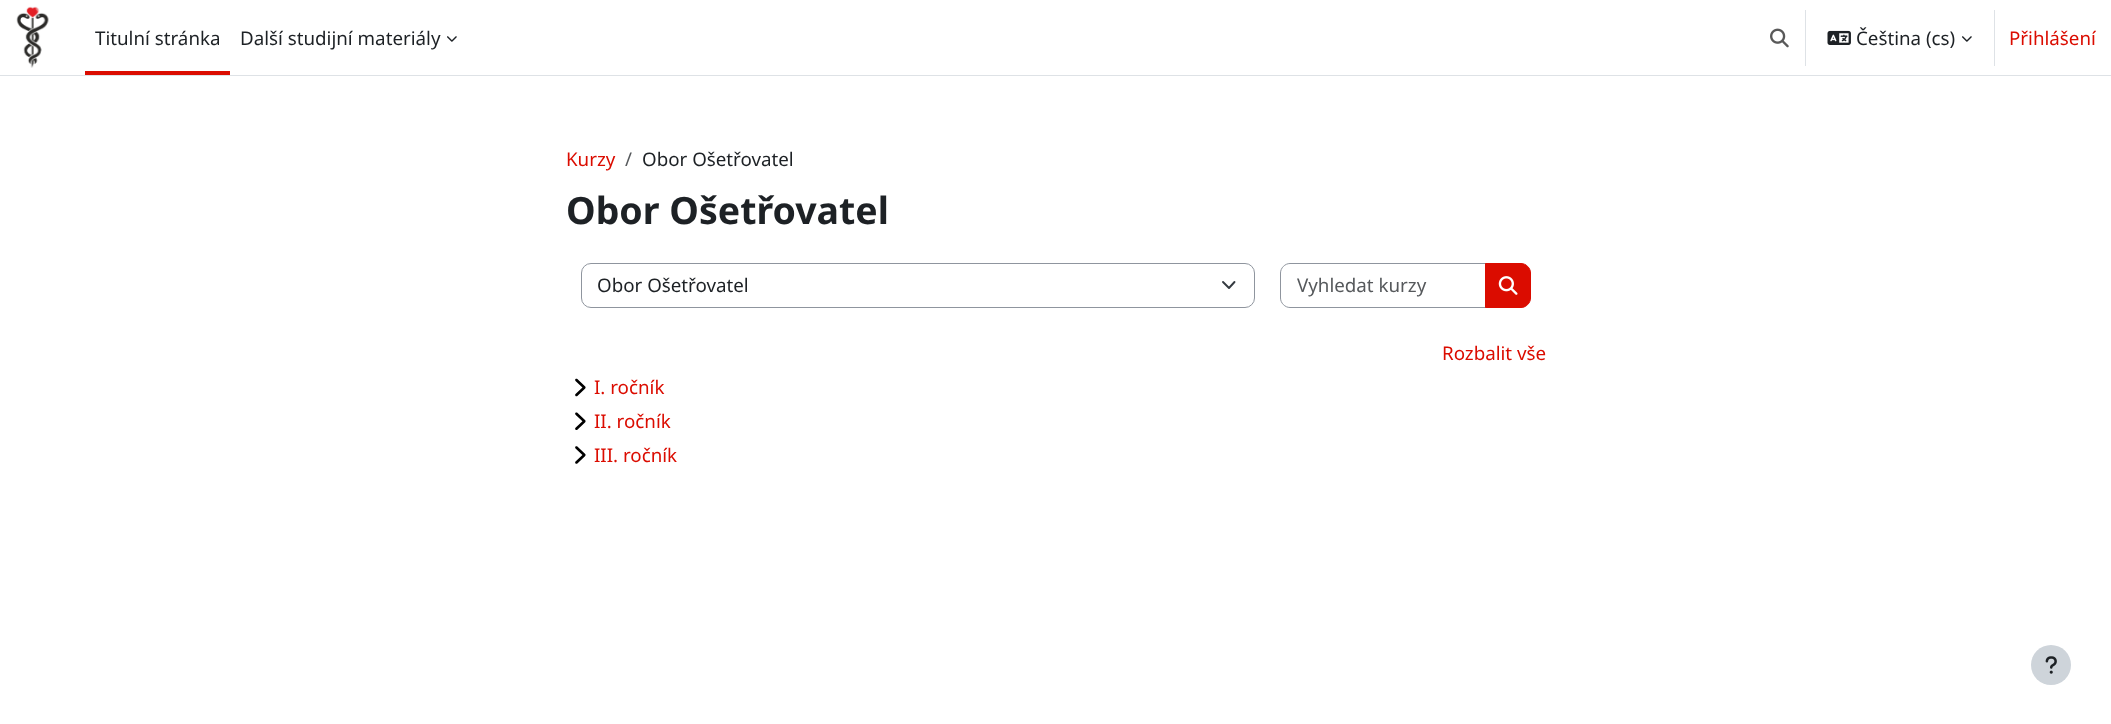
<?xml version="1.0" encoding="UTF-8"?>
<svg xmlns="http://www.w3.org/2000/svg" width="2111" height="724">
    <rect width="100%" height="100%" fill="#FFFFFF"/>
    <rect x="0" y="75" width="2111" height="1" fill="#DEE2E6"/>
    <image x="16" y="6" width="33" height="62" href="img_01.png"/>
    <rect x="85" y="71" width="145" height="4" fill="#DB0C00"/>
    <text x="95" y="45" font-family="Noto Sans" font-size="18.75" fill="#1D2125">Titulní stránka</text>
    <text x="240" y="45" font-family="Noto Sans" font-size="18.75" fill="#1D2125">Další studijní materiály</text>
    <image x="447" y="36" width="10" height="6" href="img_02.png"/>
    <image x="1770" y="28" width="19" height="20" href="img_03.png"/>
    <rect x="1805" y="10" width="1" height="56" fill="#DEE2E6"/>
    <image x="1827" y="30" width="24" height="15" href="img_04.png"/>
    <text x="1856" y="45" font-family="Noto Sans" font-size="18.75" fill="#1D2125">Čeština (cs)</text>
    <image x="1962" y="36" width="10" height="6" href="img_02.png"/>
    <rect x="1994" y="10" width="1" height="56" fill="#DEE2E6"/>
    <text x="2009" y="45" font-family="Noto Sans" font-size="18.75" fill="#DB0C00">Přihlášení</text>
    <text x="566" y="166" font-family="Noto Sans" font-size="18.75" fill="#DB0C00">Kurzy</text>
    <text x="625" y="166" font-family="Noto Sans" font-size="18.75" fill="#56595C">/</text>
    <text x="642" y="166" font-family="Noto Sans" font-size="18.75" fill="#1D2125">Obor Ošetřovatel</text>
    <text x="566" y="224" font-family="Noto Sans" font-size="37.5" font-weight="700" fill="#1D2125">Obor Ošetřovatel</text>
    <path d="M 1223 282 L 1229 288 L 1234.5 282" fill="none" stroke="#343A40" stroke-width="1.9" stroke-linecap="round" stroke-linejoin="round"/>
    <rect x="581.5" y="263.5" width="673" height="44" rx="9.5" fill="none" stroke="#8F959E"/>
    <text x="597" y="292" font-family="Noto Sans" font-size="18.75" fill="#1D2125">Obor Ošetřovatel</text>
    <path d="M 1290 263.5 H 1487.5 V 307.5 H 1290 C 1285 307.5 1280.5 303 1280.5 298 V 273 C 1280.5 268 1285 263.5 1290 263.5 Z" fill="none" stroke="#8F959E"/>
    <text x="1297" y="292" font-family="Noto Sans" font-size="18.75" fill="#56595C">Vyhledat kurzy</text>
    <path d="M 1485.5 263.5 H 1521 C 1526 263.5 1530.5 268 1530.5 273 V 298 C 1530.5 303 1526 307.5 1521 307.5 H 1485.5 Z" fill="#DB0C00" stroke="#DB0C00"/>
    <image x="1498" y="276" width="20" height="19" href="img_05.png"/>
    <text x="1442" y="360" font-family="Noto Sans" font-size="18.75" fill="#DB0C00">Rozbalit vše</text>
    <image x="575" y="378" width="11" height="19" href="img_06.png"/>
    <text x="594" y="394" font-family="Noto Sans" font-size="18.75" fill="#DB0C00">I. ročník</text>
    <image x="575" y="412" width="11" height="18" href="img_07.png"/>
    <text x="594" y="428" font-family="Noto Sans" font-size="18.75" fill="#DB0C00">II. ročník</text>
    <image x="575" y="446" width="11" height="18" href="img_08.png"/>
    <text x="594" y="462" font-family="Noto Sans" font-size="18.75" fill="#DB0C00">III. ročník</text>
    <circle cx="2051" cy="665" r="20" fill="#CED4DA"/>
    <image x="2045" y="656" width="12" height="18" href="img_09.png"/>
</svg>
